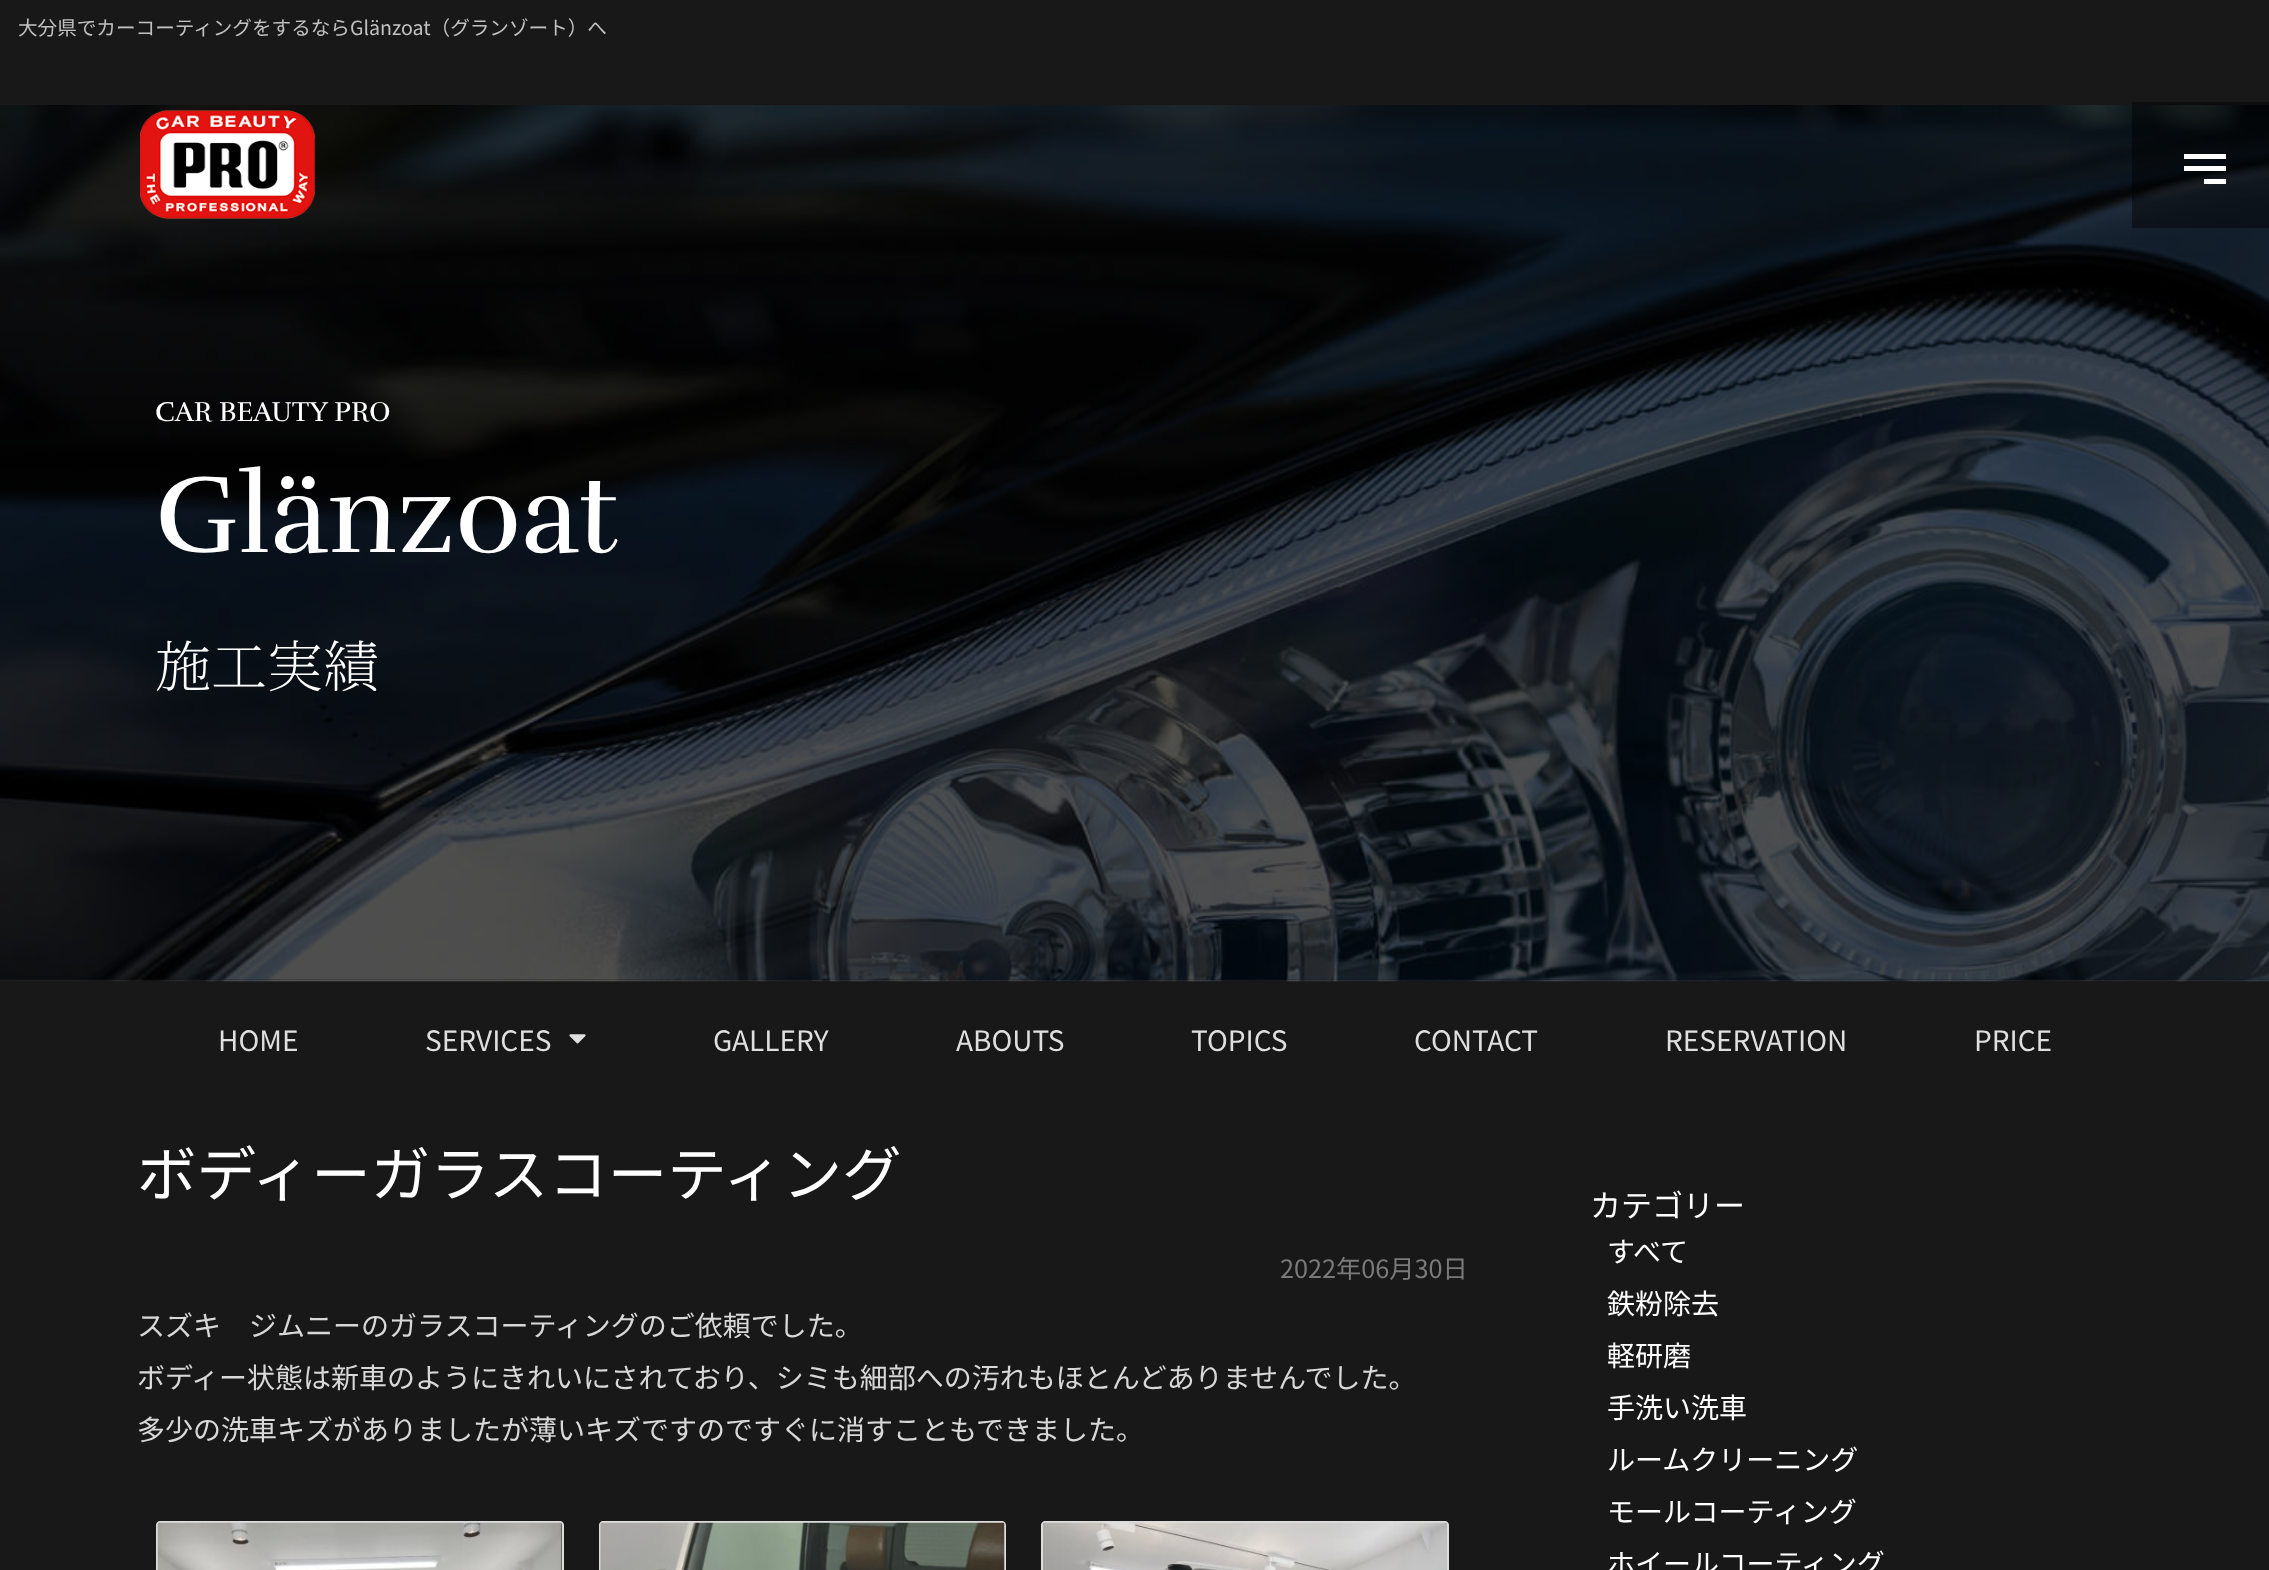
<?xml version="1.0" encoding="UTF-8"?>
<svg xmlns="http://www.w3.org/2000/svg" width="2269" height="1570">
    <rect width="100%" height="100%" fill="#181818"/>
    <text x="18" y="35" font-family="Noto Sans JP" font-size="19.6" font-weight="100" fill="#C1C1C1">大分県でカーコーティングをするならGlänzoat（グランゾート）へ</text>
    <image x="0" y="105" width="2269" height="877" href="img_02.png"/>
    <image x="140" y="110" width="175" height="109" href="img_01.png"/>
    <rect x="2132" y="102" width="137" height="126" fill="#000000" fill-opacity="0.43"/>
    <rect x="2204" y="179" width="22" height="5" fill="#FFFFFF"/>
    <rect x="2184" y="154" width="42" height="5" fill="#FFFFFF"/>
    <rect x="2184" y="166" width="42" height="5" fill="#FFFFFF"/>
    <text x="155" y="421" font-family="Rufina" font-size="28" fill="#FFFFFF">CAR BEAUTY PRO</text>
    <text x="155" y="552" font-family="Rufina" font-size="112" fill="#FFFFFF">Glänzoat</text>
    <text x="155" y="687" font-family="Noto Serif JP" font-size="56" font-weight="200" fill="#FFFFFF">施工実績</text>
    <text x="218" y="1051" font-family="Noto Sans JP" font-size="28" font-weight="100" fill="#DFDFDF">HOME</text>
    <text x="425" y="1051" font-family="Noto Sans JP" font-size="28" font-weight="100" fill="#DFDFDF">SERVICES</text>
    <image x="569" y="1034" width="17" height="10" href="img_03.png"/>
    <text x="713" y="1051" font-family="Noto Sans JP" font-size="28" font-weight="100" fill="#DFDFDF">GALLERY</text>
    <text x="956" y="1051" font-family="Noto Sans JP" font-size="28" font-weight="100" fill="#DFDFDF">ABOUTS</text>
    <text x="1191" y="1051" font-family="Noto Sans JP" font-size="28" font-weight="100" fill="#DFDFDF">TOPICS</text>
    <text x="1414" y="1051" font-family="Noto Sans JP" font-size="28" font-weight="100" fill="#DFDFDF">CONTACT</text>
    <text x="1665" y="1051" font-family="Noto Sans JP" font-size="28" font-weight="100" fill="#DFDFDF">RESERVATION</text>
    <text x="1974" y="1051" font-family="Noto Sans JP" font-size="28" font-weight="100" fill="#DFDFDF">PRICE</text>
    <text x="137" y="1196" font-family="Noto Sans JP" font-size="59.5" font-weight="100" fill="#FFFFFF">ボディーガラスコーティング</text>
    <text x="1280" y="1278" font-family="Noto Sans JP" font-size="25.25" font-weight="100" fill="#7A7A7A">2022年06月30日</text>
    <text font-family="Noto Sans JP" font-size="28" font-weight="100" fill="#D8D8D8">
        <tspan x="137" y="1336">スズキ　ジムニーのガラスコーティングのご依頼でした。</tspan>
        <tspan x="137" y="1388">ボディー状態は新車のようにきれいにされており、シミも細部への汚れもほとんどありませんでした。</tspan>
        <tspan x="137" y="1440">多少の洗車キズがありましたが薄いキズですのですぐに消すこともできました。</tspan>
    </text>
    <path d="M 160 1522 H 560 C 561.5 1522 563 1523.5 563 1525 V 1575 H 157 V 1525 C 157 1523.5 158.5 1522 160 1522 Z" fill="none" stroke="#DDDDDD" stroke-width="2"/>
    <image x="157" y="1522" width="405" height="48" href="img_04.png"/>
    <path d="M 603 1522 H 1002 C 1003.5 1522 1005 1523.5 1005 1525 V 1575 H 600 V 1525 C 600 1523.5 601.5 1522 603 1522 Z" fill="none" stroke="#DDDDDD" stroke-width="2"/>
    <image x="600" y="1522" width="405" height="48" href="img_05.png"/>
    <path d="M 1045 1522 H 1445 C 1446.5 1522 1448 1523.5 1448 1525 V 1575 H 1042 V 1525 C 1042 1523.5 1043.5 1522 1045 1522 Z" fill="none" stroke="#DDDDDD" stroke-width="2"/>
    <image x="1043" y="1522" width="404" height="48" href="img_06.png"/>
    <text x="1590" y="1217" font-family="Noto Sans JP" font-size="31" font-weight="100" fill="#FFFFFF">カテゴリー</text>
    <text font-family="Noto Sans JP" font-size="28" font-weight="100" fill="#FFFFFF">
        <tspan x="1607" y="1262">すべて</tspan>
        <tspan x="1607" y="1314">鉄粉除去</tspan>
        <tspan x="1607" y="1366">軽研磨</tspan>
        <tspan x="1607" y="1418">手洗い洗車</tspan>
        <tspan x="1607" y="1470">ルームクリーニング</tspan>
        <tspan x="1607" y="1522">モールコーティング</tspan>
        <tspan x="1607" y="1574">ホイールコーティング</tspan>
    </text>
</svg>
